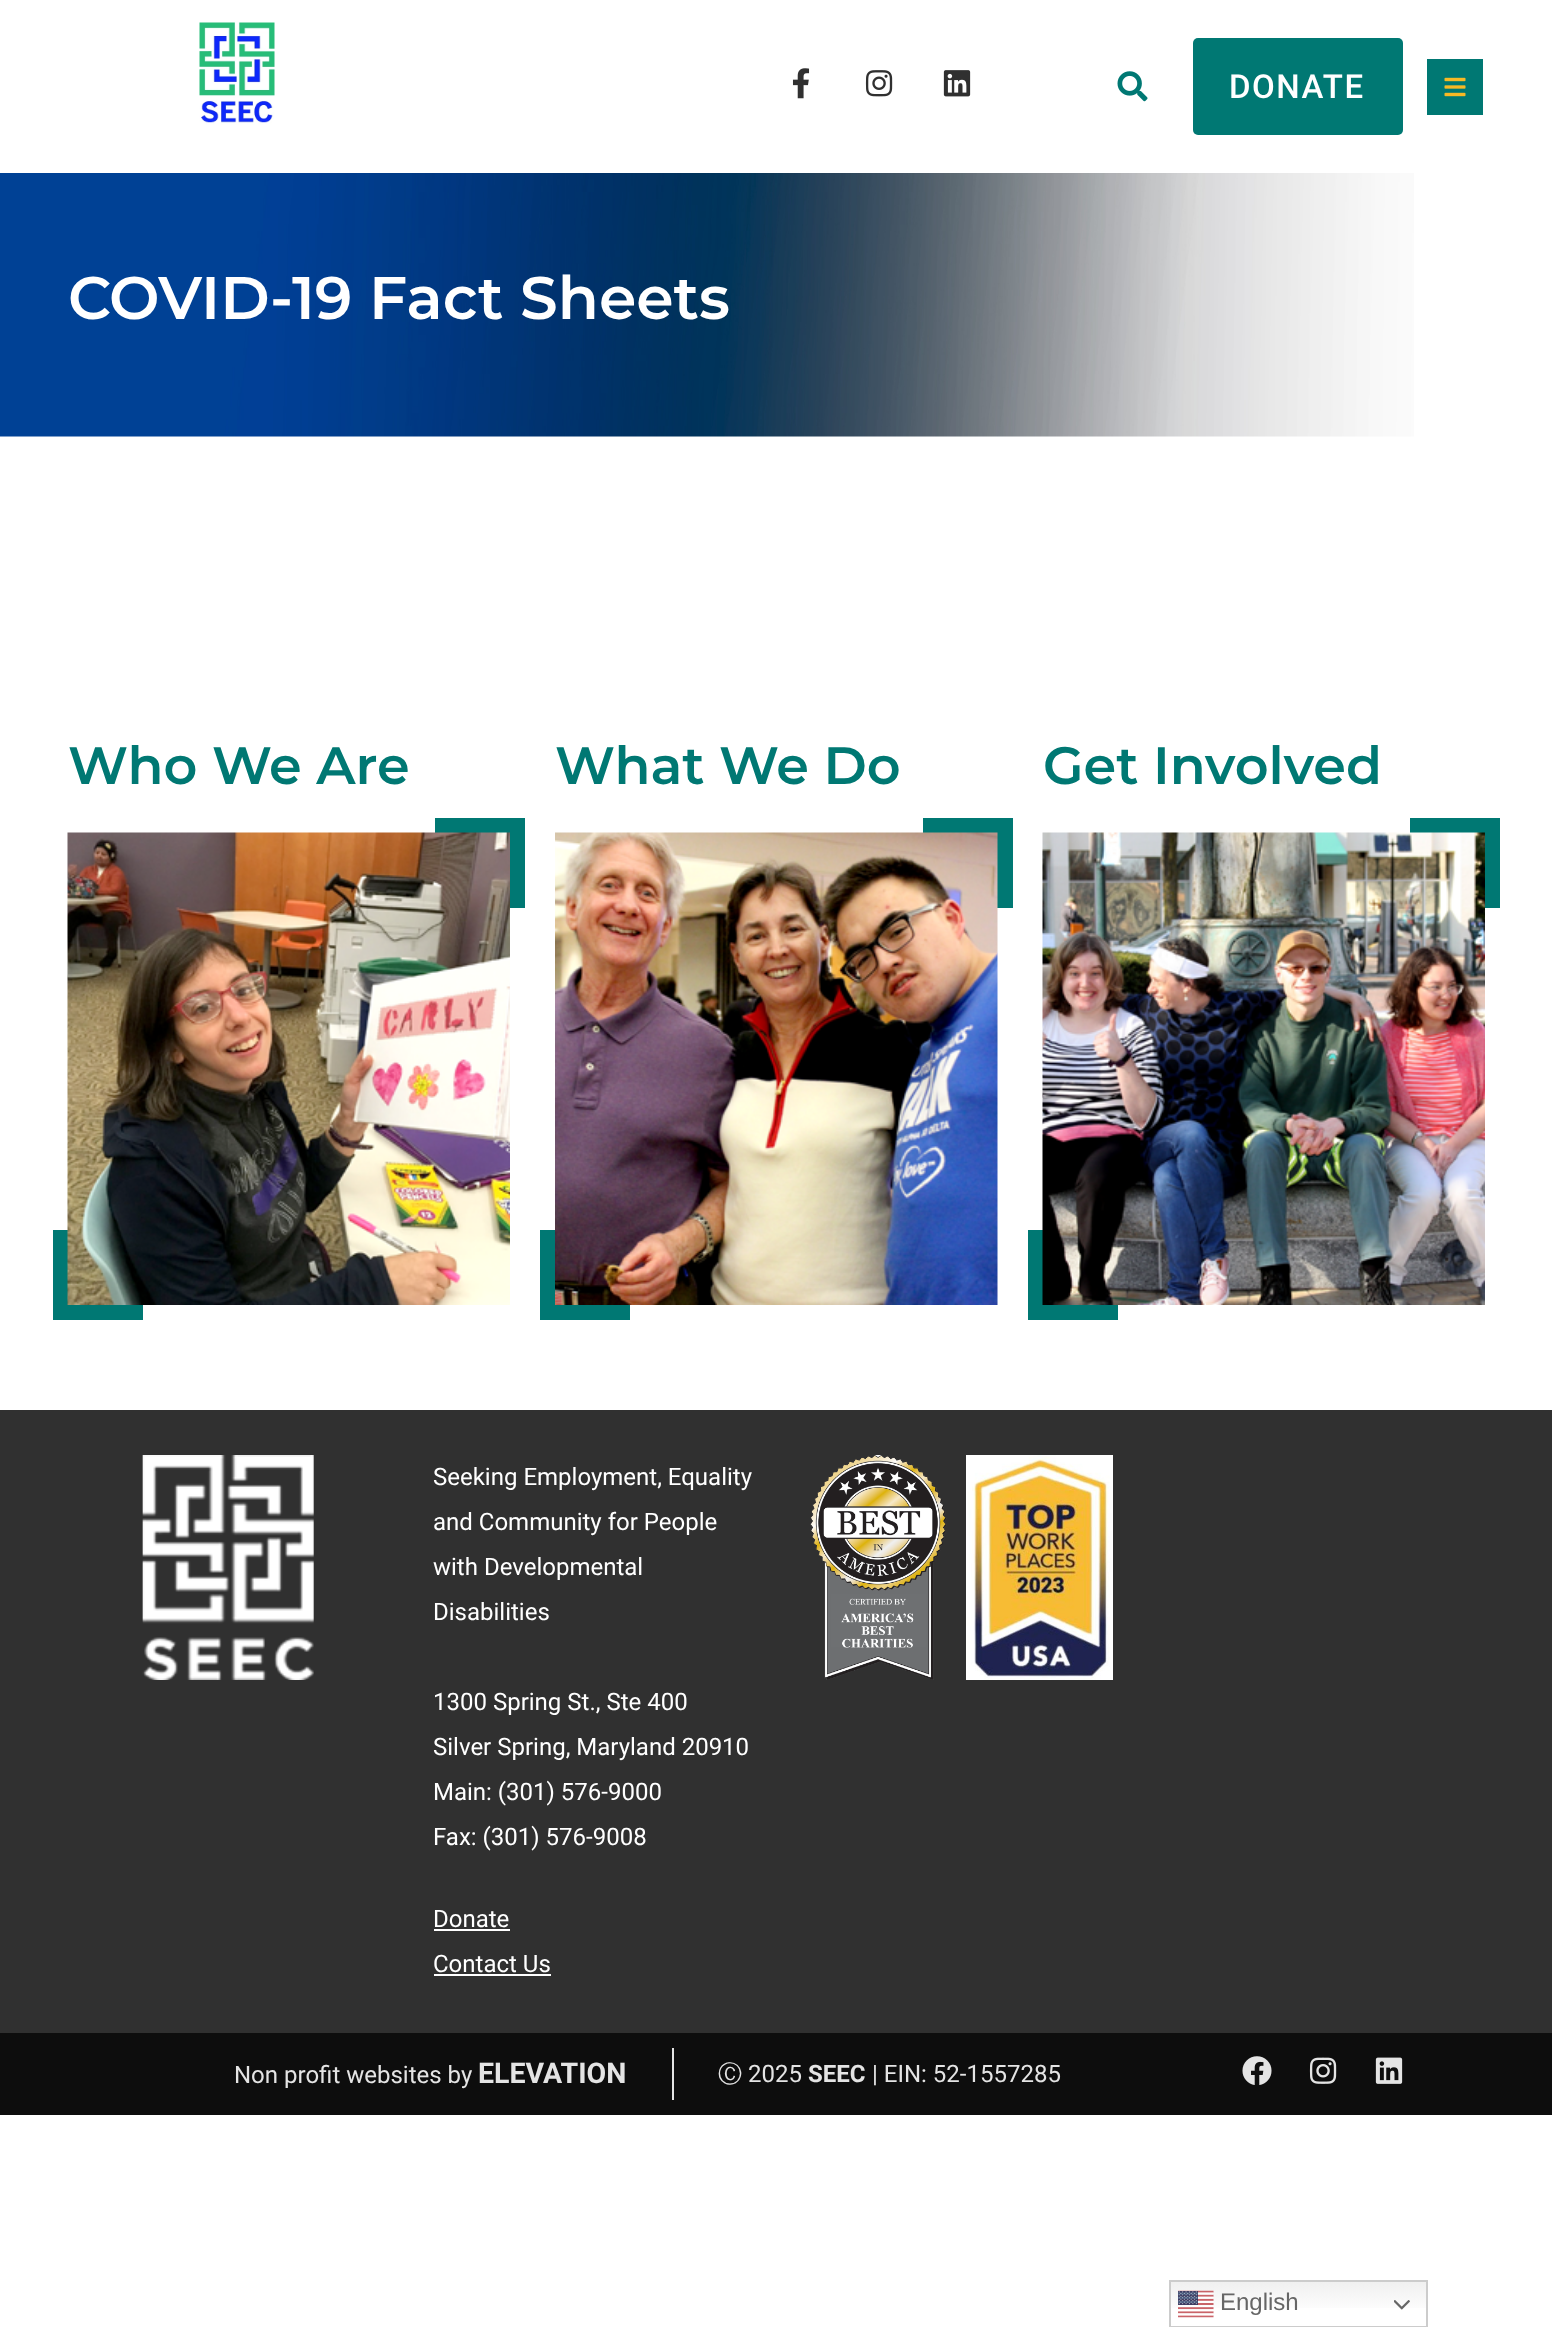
<?xml version="1.0" encoding="UTF-8"?>
<svg xmlns="http://www.w3.org/2000/svg" width="1552" height="2327">
    <defs>
        <linearGradient id="g1" gradientUnits="userSpaceOnUse" x1="1298" y1="2280" x2="1298" y2="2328"><stop offset="0" stop-color="#EFEFEF"/><stop offset="0.7" stop-color="#FFFFFF"/></linearGradient>
    </defs>
    <rect width="100%" height="100%" fill="#FFFFFF"/>
    <image x="199" y="22" width="76" height="103" href="img_01.png"/>
    <image x="792" y="68" width="18" height="31" href="img_02.png"/>
    <image x="865" y="70" width="28" height="27" href="img_03.png"/>
    <image x="943" y="70" width="28" height="27" href="img_04.png"/>
    <image x="1117" y="71" width="31" height="31" href="img_05.png"/>
    <rect x="1193" y="38" width="210" height="97" rx="5" fill="#007873"/>
    <text x="1229" y="98" font-family="Roboto" font-size="33" font-weight="500" letter-spacing="1.5" fill="#FFFFFF">DONATE</text>
    <rect x="1427" y="59" width="56" height="56" fill="#007873"/>
    <image x="1444" y="77" width="22" height="20" href="img_06.png"/>
    <image x="0" y="173" width="1414" height="264" href="img_07.png"/>
    <text x="68" y="319" font-family="Montserrat" font-size="60" font-weight="600" fill="#FFFFFF">COVID-19 Fact Sheets</text>
    <text x="68" y="784" font-family="Montserrat" font-size="52.5" font-weight="600" fill="#007873">Who We Are</text>
    <rect x="435" y="818" width="90" height="90" fill="#007873"/>
    <rect x="53" y="1230" width="90" height="90" fill="#007873"/>
    <image x="67" y="832" width="443" height="473" href="img_08.png"/>
    <text x="555" y="784" font-family="Montserrat" font-size="52.5" font-weight="600" fill="#007873">What We Do</text>
    <rect x="923" y="818" width="90" height="90" fill="#007873"/>
    <rect x="540" y="1230" width="90" height="90" fill="#007873"/>
    <image x="555" y="832" width="443" height="473" href="img_09.png"/>
    <text x="1043" y="784" font-family="Montserrat" font-size="52.5" font-weight="600" fill="#007873">Get Involved</text>
    <rect x="1410" y="818" width="90" height="90" fill="#007873"/>
    <rect x="1028" y="1230" width="90" height="90" fill="#007873"/>
    <image x="1042" y="832" width="443" height="473" href="img_10.png"/>
    <rect x="0" y="1410" width="1552" height="623" fill="#303030"/>
    <image x="142" y="1455" width="172" height="225" href="img_11.png"/>
    <text font-family="Roboto" font-size="24" fill="#FFFFFF">
        <tspan x="433" y="1485">Seeking Employment, Equality</tspan>
        <tspan x="433" y="1530">and Community for People</tspan>
        <tspan x="433" y="1575">with Developmental</tspan>
        <tspan x="433" y="1620">Disabilities</tspan>
    </text>
    <text font-family="Roboto" font-size="24" fill="#FFFFFF">
        <tspan x="433" y="1710">1300 Spring St., Ste 400</tspan>
        <tspan x="433" y="1755">Silver Spring, Maryland 20910</tspan>
        <tspan x="433" y="1800">Main: (301) 576-9000</tspan>
        <tspan x="433" y="1845">Fax: (301) 576-9008</tspan>
    </text>
    <text x="433" y="1927" font-family="Roboto" font-size="24" fill="#FFFFFF">Donate</text>
    <rect x="434" y="1929" width="76" height="2" fill="#FFFFFF"/>
    <text x="433" y="1972" font-family="Roboto" font-size="24" fill="#FFFFFF">Contact Us</text>
    <rect x="434" y="1974" width="117" height="2" fill="#FFFFFF"/>
    <image x="810" y="1455" width="137" height="225" href="img_12.png"/>
    <image x="966" y="1455" width="147" height="225" href="img_13.png"/>
    <rect x="0" y="2033" width="1552" height="82" fill="#0D0D0D"/>
    <rect x="672" y="2048" width="2" height="52" fill="#E4E4E4"/>
    <text x="234" y="2083" font-family="Roboto" font-size="24" fill="#E4E4E4">Non profit websites by</text>
    <text x="478" y="2083" font-family="Roboto" font-size="28.5" font-weight="700" fill="#E4E4E4">ELEVATION</text>
    <text x="718" y="2082" font-family="WenQuanYi Zen Hei" font-size="24" font-weight="500" fill="#E4E4E4">Ⓒ</text>
    <text x="748" y="2082" font-family="Roboto" font-size="24" fill="#E4E4E4">2025</text>
    <text x="808" y="2082" font-family="Roboto" font-size="24" font-weight="700" fill="#E4E4E4">SEEC</text>
    <text x="872" y="2082" font-family="Roboto" font-size="24" fill="#E4E4E4">| EIN: 52-1557285</text>
    <image x="1242" y="2056" width="30" height="29" href="img_14.png"/>
    <image x="1309" y="2057" width="28" height="27" href="img_15.png"/>
    <image x="1375" y="2057" width="28" height="27" href="img_16.png"/>
    <rect x="1171" y="2282" width="255" height="26" fill="url(#g1)"/>
    <rect x="1170" y="2281" width="257" height="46" fill="none" stroke="#CCCCCC" stroke-width="2"/>
    <image x="1178" y="2290" width="36" height="28" href="img_17.png"/>
    <text x="1220" y="2310" font-family="Liberation Sans" font-size="24" fill="#666666">English</text>
    <image x="1394" y="2300" width="16" height="10" href="img_18.png"/>
</svg>
